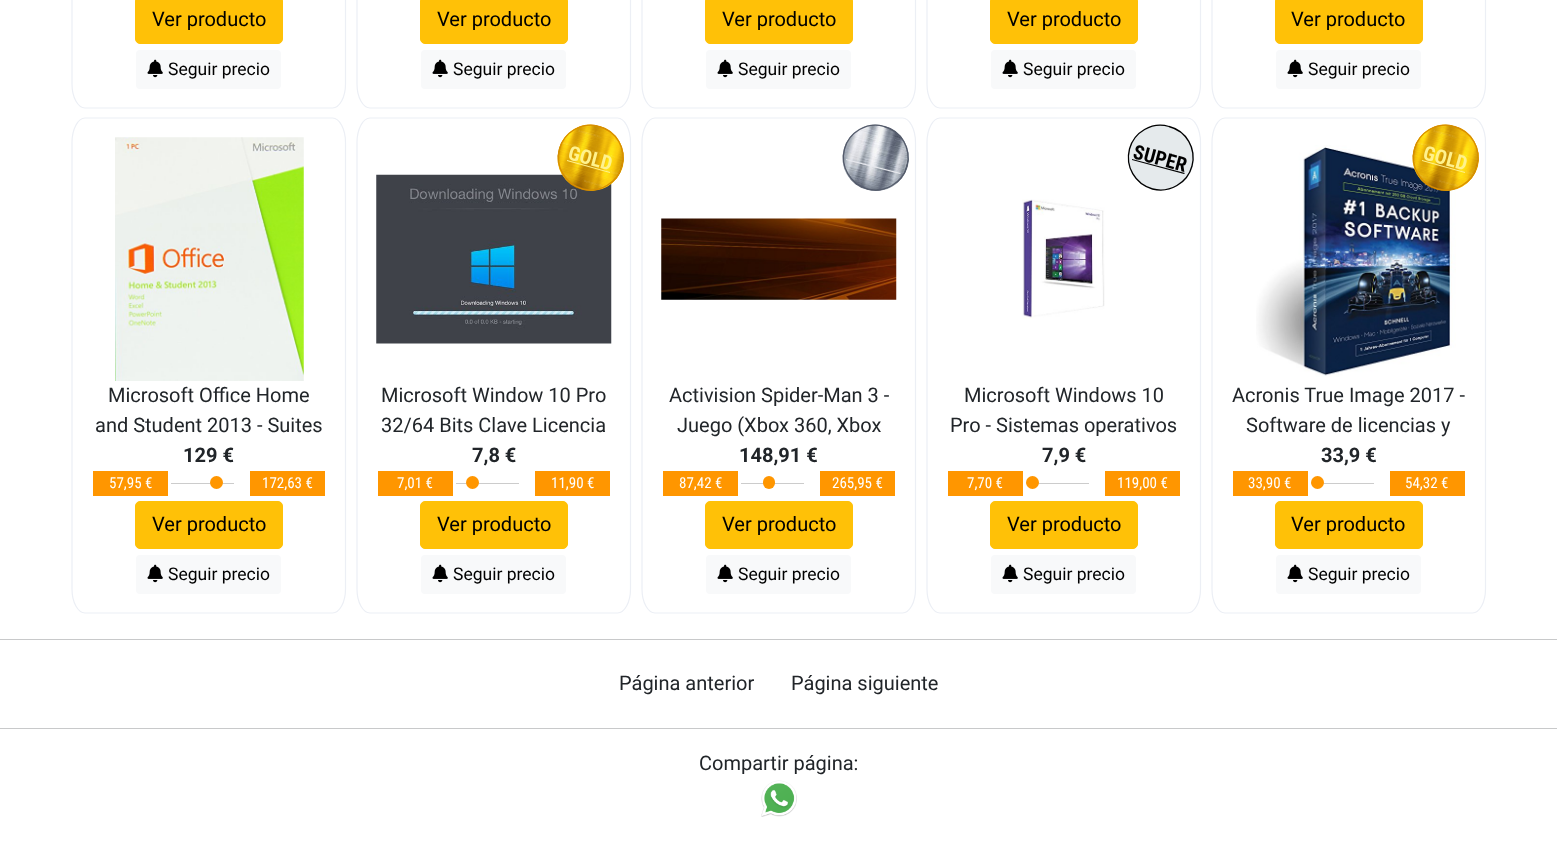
<?xml version="1.0" encoding="UTF-8"?>
<svg xmlns="http://www.w3.org/2000/svg" width="1557" height="867">
    <rect width="100%" height="100%" fill="#FFFFFF"/>
    <path d="M 85 -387 H 332.5 C 339.5 -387 345.5 -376 345.5 -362.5 V 84 C 345.5 97.5 339.5 108 332.5 108 H 85 C 78 108 72 97.5 72 84 V -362.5 C 72 -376 78 -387 85 -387 Z" fill="none" stroke="#ECEFF5" stroke-width="1.2"/>
    <rect x="135.5" y="-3.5" width="147" height="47" rx="4.5" fill="#FFC107" stroke="#FFC107"/>
    <text x="152" y="26" font-family="Roboto" font-size="20" fill="#000000">Ver producto</text>
    <rect x="136" y="50" width="145" height="39" rx="4" fill="#F8F9FA"/>
    <image x="147" y="59" width="16" height="19" href="img_01.png"/>
    <text x="168" y="75" font-family="Roboto" font-size="17.5" fill="#000000">Seguir precio</text>
    <path d="M 370 -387 H 617.5 C 624.5 -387 630.5 -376 630.5 -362.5 V 84 C 630.5 97.5 624.5 108 617.5 108 H 370 C 363 108 357 97.5 357 84 V -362.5 C 357 -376 363 -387 370 -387 Z" fill="none" stroke="#ECEFF5" stroke-width="1.2"/>
    <rect x="420.5" y="-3.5" width="147" height="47" rx="4.5" fill="#FFC107" stroke="#FFC107"/>
    <text x="437" y="26" font-family="Roboto" font-size="20" fill="#000000">Ver producto</text>
    <rect x="421" y="50" width="145" height="39" rx="4" fill="#F8F9FA"/>
    <image x="432" y="59" width="16" height="19" href="img_01.png"/>
    <text x="453" y="75" font-family="Roboto" font-size="17.5" fill="#000000">Seguir precio</text>
    <path d="M 655 -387 H 902.5 C 909.5 -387 915.5 -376 915.5 -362.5 V 84 C 915.5 97.5 909.5 108 902.5 108 H 655 C 648 108 642 97.5 642 84 V -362.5 C 642 -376 648 -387 655 -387 Z" fill="none" stroke="#ECEFF5" stroke-width="1.2"/>
    <rect x="705.5" y="-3.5" width="147" height="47" rx="4.5" fill="#FFC107" stroke="#FFC107"/>
    <text x="722" y="26" font-family="Roboto" font-size="20" fill="#000000">Ver producto</text>
    <rect x="706" y="50" width="145" height="39" rx="4" fill="#F8F9FA"/>
    <image x="717" y="59" width="16" height="19" href="img_01.png"/>
    <text x="738" y="75" font-family="Roboto" font-size="17.5" fill="#000000">Seguir precio</text>
    <path d="M 940 -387 H 1187.5 C 1194.5 -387 1200.5 -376 1200.5 -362.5 V 84 C 1200.5 97.5 1194.5 108 1187.5 108 H 940 C 933 108 927 97.5 927 84 V -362.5 C 927 -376 933 -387 940 -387 Z" fill="none" stroke="#ECEFF5" stroke-width="1.2"/>
    <rect x="990.5" y="-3.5" width="147" height="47" rx="4.5" fill="#FFC107" stroke="#FFC107"/>
    <text x="1007" y="26" font-family="Roboto" font-size="20" fill="#000000">Ver producto</text>
    <rect x="991" y="50" width="145" height="39" rx="4" fill="#F8F9FA"/>
    <image x="1002" y="59" width="16" height="19" href="img_01.png"/>
    <text x="1023" y="75" font-family="Roboto" font-size="17.5" fill="#000000">Seguir precio</text>
    <path d="M 1225 -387 H 1472.5 C 1479.5 -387 1485.5 -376 1485.5 -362.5 V 84 C 1485.5 97.5 1479.5 108 1472.5 108 H 1225 C 1218 108 1212 97.5 1212 84 V -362.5 C 1212 -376 1218 -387 1225 -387 Z" fill="none" stroke="#ECEFF5" stroke-width="1.2"/>
    <rect x="1275.5" y="-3.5" width="147" height="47" rx="4.5" fill="#FFC107" stroke="#FFC107"/>
    <text x="1291" y="26" font-family="Roboto" font-size="20" fill="#000000">Ver producto</text>
    <rect x="1276" y="50" width="145" height="39" rx="4" fill="#F8F9FA"/>
    <image x="1287" y="59" width="16" height="19" href="img_01.png"/>
    <text x="1308" y="75" font-family="Roboto" font-size="17.5" fill="#000000">Seguir precio</text>
    <path d="M 85 118 H 332.5 C 339.5 118 345.5 129 345.5 142.5 V 589 C 345.5 602.5 339.5 613 332.5 613 H 85 C 78 613 72 602.5 72 589 V 142.5 C 72 129 78 118 85 118 Z" fill="none" stroke="#ECEFF5" stroke-width="1.2"/>
    <image x="115" y="137" width="189" height="244" href="img_02.png"/>
    <text x="108" y="402" font-family="Roboto" font-size="20" fill="#212529">Microsoft Office Home</text>
    <text x="95" y="432" font-family="Roboto" font-size="20" fill="#212529">and Student 2013 - Suites</text>
    <text x="183" y="462" font-family="Roboto" font-size="20" font-weight="700" fill="#212529">129 €</text>
    <rect x="93" y="471" width="75" height="25" fill="#FF9600"/>
    <text x="109" y="488" font-family="Roboto Condensed" font-size="15" fill="#FFFFFF">57,95 €</text>
    <rect x="171" y="483" width="63" height="1" fill="#CCCCCC"/>
    <circle cx="216.5" cy="482.5" r="6.5" fill="#FF9600"/>
    <rect x="250" y="471" width="75" height="25" fill="#FF9600"/>
    <text x="262" y="488" font-family="Roboto Condensed" font-size="15" fill="#FFFFFF">172,63 €</text>
    <rect x="135.5" y="501.5" width="147" height="47" rx="4.5" fill="#FFC107" stroke="#FFC107"/>
    <text x="152" y="531" font-family="Roboto" font-size="20" fill="#000000">Ver producto</text>
    <rect x="136" y="555" width="145" height="39" rx="4" fill="#F8F9FA"/>
    <image x="147" y="564" width="16" height="19" href="img_01.png"/>
    <text x="168" y="580" font-family="Roboto" font-size="17.5" fill="#000000">Seguir precio</text>
    <path d="M 370 118 H 617.5 C 624.5 118 630.5 129 630.5 142.5 V 589 C 630.5 602.5 624.5 613 617.5 613 H 370 C 363 613 357 602.5 357 589 V 142.5 C 357 129 363 118 370 118 Z" fill="none" stroke="#ECEFF5" stroke-width="1.2"/>
    <image x="376" y="174" width="236" height="170" href="img_04.png"/>
    <path d="M 599 126 C 617 130 627 149 623 166 C 618 184 600 194 582 189 C 565 185 554 167 559 149 C 564 131 582 121 599 126 Z" fill="#FFD100"/>
    <image x="557" y="124" width="67" height="67" href="img_03.png"/>
    <path d="M 599 126.5 C 616.5 131 626.5 148.5 622 166 C 617.5 183 599.5 193.5 582.5 189 C 565 184 555 166.5 559.5 149 C 564 132 582 121.5 599 126.5 Z" fill="none" stroke="#D88D01" stroke-width="1.3"/>
    <path d="M 567 160 L 610 172 V 173 L 567 161 Z" fill="#FFF28D"/>
    <text x="567" y="159" transform="rotate(15 567 159)" font-family="Roboto Condensed" font-size="20" font-weight="700" fill="#FFF28D">GOLD</text>
    <text font-family="Roboto" font-size="20" fill="#212529">
        <tspan x="381" y="402">Microsoft Window 10 Pro</tspan>
        <tspan x="381" y="432">32/64 Bits Clave Licencia</tspan>
    </text>
    <text x="472" y="462" font-family="Roboto" font-size="20" font-weight="700" fill="#212529">7,8 €</text>
    <rect x="378" y="471" width="75" height="25" fill="#FF9600"/>
    <text x="397" y="488" font-family="Roboto Condensed" font-size="15" fill="#FFFFFF">7,01 €</text>
    <rect x="456" y="483" width="63" height="1" fill="#CCCCCC"/>
    <circle cx="472.5" cy="482.5" r="6.5" fill="#FF9600"/>
    <rect x="535" y="471" width="75" height="25" fill="#FF9600"/>
    <text x="551" y="488" font-family="Roboto Condensed" font-size="15" fill="#FFFFFF">11,90 €</text>
    <rect x="420.5" y="501.5" width="147" height="47" rx="4.5" fill="#FFC107" stroke="#FFC107"/>
    <text x="437" y="531" font-family="Roboto" font-size="20" fill="#000000">Ver producto</text>
    <rect x="421" y="555" width="145" height="39" rx="4" fill="#F8F9FA"/>
    <image x="432" y="564" width="16" height="19" href="img_01.png"/>
    <text x="453" y="580" font-family="Roboto" font-size="17.5" fill="#000000">Seguir precio</text>
    <path d="M 655 118 H 902.5 C 909.5 118 915.5 129 915.5 142.5 V 589 C 915.5 602.5 909.5 613 902.5 613 H 655 C 648 613 642 602.5 642 589 V 142.5 C 642 129 648 118 655 118 Z" fill="none" stroke="#ECEFF5" stroke-width="1.2"/>
    <path d="M 884 126 C 902 130 912 149 908 166 C 903 184 885 194 867 189 C 850 185 839 167 844 149 C 849 131 867 121 884 126 Z" fill="#A7AEB6"/>
    <image x="842" y="124" width="67" height="67" href="img_05.png"/>
    <path d="M 884 126.5 C 901.5 131 911.5 148.5 907 166 C 902.5 183 884.5 193.5 867.5 189 C 850 184 840 166.5 844.5 149 C 849 132 867 121.5 884 126.5 Z" fill="none" stroke="#545B6B" stroke-width="1.3"/>
    <path d="M 846 159 L 901 173 L 900 174 L 846 160 Z" fill="#E8E9EE"/>
    <image x="661" y="218" width="236" height="82" href="img_06.png"/>
    <text x="669" y="402" font-family="Roboto" font-size="20" fill="#212529">Activision Spider-Man 3 -</text>
    <text x="677" y="432" font-family="Roboto" font-size="20" fill="#212529">Juego (Xbox 360, Xbox</text>
    <text x="739" y="462" font-family="Roboto" font-size="20" font-weight="700" fill="#212529">148,91 €</text>
    <rect x="663" y="471" width="75" height="25" fill="#FF9600"/>
    <text x="679" y="488" font-family="Roboto Condensed" font-size="15" fill="#FFFFFF">87,42 €</text>
    <rect x="741" y="483" width="63" height="1" fill="#CCCCCC"/>
    <rect x="763" y="476" width="12" height="13" rx="6" fill="#FF9600"/>
    <rect x="820" y="471" width="75" height="25" fill="#FF9600"/>
    <text x="832" y="488" font-family="Roboto Condensed" font-size="15" fill="#FFFFFF">265,95 €</text>
    <rect x="705.5" y="501.5" width="147" height="47" rx="4.5" fill="#FFC107" stroke="#FFC107"/>
    <text x="722" y="531" font-family="Roboto" font-size="20" fill="#000000">Ver producto</text>
    <rect x="706" y="555" width="145" height="39" rx="4" fill="#F8F9FA"/>
    <image x="717" y="564" width="16" height="19" href="img_01.png"/>
    <text x="738" y="580" font-family="Roboto" font-size="17.5" fill="#000000">Seguir precio</text>
    <path d="M 940 118 H 1187.5 C 1194.5 118 1200.5 129 1200.5 142.5 V 589 C 1200.5 602.5 1194.5 613 1187.5 613 H 940 C 933 613 927 602.5 927 589 V 142.5 C 927 129 933 118 940 118 Z" fill="none" stroke="#ECEFF5" stroke-width="1.2"/>
    <path d="M 1169 126 C 1187 130 1197 149 1193 166 C 1188 184 1170 194 1152 189 C 1135 185 1124 167 1129 149 C 1134 131 1152 121 1169 126 Z" fill="#E5EAEC"/>
    <path d="M 1169 126.5 C 1186.5 131 1196.5 148.5 1192 166 C 1187.5 183 1169.5 193.5 1152.5 189 C 1135 184 1125 166.5 1129.5 149 C 1134 132 1152 121.5 1169 126.5 Z" fill="none" stroke="#000000" stroke-width="1.3"/>
    <path d="M 1132 159 L 1185 173 L 1184 174 L 1132 160 Z" fill="#000000"/>
    <text x="1132" y="158" transform="rotate(15 1132 158)" font-family="Roboto Condensed" font-size="20" font-weight="700" fill="#000000">SUPER</text>
    <image x="1022" y="199" width="83" height="120" href="img_07.png"/>
    <text x="964" y="402" font-family="Roboto" font-size="20" fill="#212529">Microsoft Windows 10</text>
    <text x="950" y="432" font-family="Roboto" font-size="20" fill="#212529">Pro - Sistemas operativos</text>
    <text x="1042" y="462" font-family="Roboto" font-size="20" font-weight="700" fill="#212529">7,9 €</text>
    <rect x="948" y="471" width="75" height="25" fill="#FF9600"/>
    <text x="967" y="488" font-family="Roboto Condensed" font-size="15" fill="#FFFFFF">7,70 €</text>
    <rect x="1026" y="483" width="63" height="1" fill="#CCCCCC"/>
    <circle cx="1032.5" cy="482.5" r="6.5" fill="#FF9600"/>
    <rect x="1105" y="471" width="75" height="25" fill="#FF9600"/>
    <text x="1117" y="488" font-family="Roboto Condensed" font-size="15" fill="#FFFFFF">119,00 €</text>
    <rect x="990.5" y="501.5" width="147" height="47" rx="4.5" fill="#FFC107" stroke="#FFC107"/>
    <text x="1007" y="531" font-family="Roboto" font-size="20" fill="#000000">Ver producto</text>
    <rect x="991" y="555" width="145" height="39" rx="4" fill="#F8F9FA"/>
    <image x="1002" y="564" width="16" height="19" href="img_01.png"/>
    <text x="1023" y="580" font-family="Roboto" font-size="17.5" fill="#000000">Seguir precio</text>
    <path d="M 1225 118 H 1472.5 C 1479.5 118 1485.5 129 1485.5 142.5 V 589 C 1485.5 602.5 1479.5 613 1472.5 613 H 1225 C 1218 613 1212 602.5 1212 589 V 142.5 C 1212 129 1218 118 1225 118 Z" fill="none" stroke="#ECEFF5" stroke-width="1.2"/>
    <image x="1256" y="145" width="200" height="232" href="img_08.png"/>
    <path d="M 1454 126 C 1472 130 1482 149 1478 166 C 1473 184 1455 194 1437 189 C 1420 185 1409 167 1414 149 C 1419 131 1437 121 1454 126 Z" fill="#FFD100"/>
    <image x="1412" y="124" width="67" height="67" href="img_09.png"/>
    <path d="M 1454 126.5 C 1471.5 131 1481.5 148.5 1477 166 C 1472.5 183 1454.5 193.5 1437.5 189 C 1420 184 1410 166.5 1414.5 149 C 1419 132 1437 121.5 1454 126.5 Z" fill="none" stroke="#D88D01" stroke-width="1.3"/>
    <path d="M 1422 160 L 1465 172 V 173 L 1422 161 Z" fill="#FFF28D"/>
    <text x="1422" y="159" transform="rotate(15 1422 159)" font-family="Roboto Condensed" font-size="20" font-weight="700" fill="#FFF28D">GOLD</text>
    <text x="1232" y="402" font-family="Roboto" font-size="20" fill="#212529">Acronis True Image 2017 -</text>
    <text x="1246" y="432" font-family="Roboto" font-size="20" fill="#212529">Software de licencias y</text>
    <text x="1321" y="462" font-family="Roboto" font-size="20" font-weight="700" fill="#212529">33,9 €</text>
    <rect x="1233" y="471" width="75" height="25" fill="#FF9600"/>
    <text x="1248" y="488" font-family="Roboto Condensed" font-size="15" fill="#FFFFFF">33,90 €</text>
    <rect x="1311" y="483" width="63" height="1" fill="#CCCCCC"/>
    <circle cx="1317.5" cy="482.5" r="6.5" fill="#FF9600"/>
    <rect x="1390" y="471" width="75" height="25" fill="#FF9600"/>
    <text x="1405" y="488" font-family="Roboto Condensed" font-size="15" fill="#FFFFFF">54,32 €</text>
    <rect x="1275.5" y="501.5" width="147" height="47" rx="4.5" fill="#FFC107" stroke="#FFC107"/>
    <text x="1291" y="531" font-family="Roboto" font-size="20" fill="#000000">Ver producto</text>
    <rect x="1276" y="555" width="145" height="39" rx="4" fill="#F8F9FA"/>
    <image x="1287" y="564" width="16" height="19" href="img_01.png"/>
    <text x="1308" y="580" font-family="Roboto" font-size="17.5" fill="#000000">Seguir precio</text>
    <rect x="0" y="639" width="1557" height="1" fill="#C8C9CA"/>
    <text x="619" y="690" font-family="Roboto" font-size="20" fill="#212529">Página anterior</text>
    <text x="791" y="690" font-family="Roboto" font-size="20" fill="#212529">Página siguiente</text>
    <rect x="0" y="728" width="1557" height="1" fill="#C8C9CA"/>
    <text x="699" y="770" font-family="Roboto" font-size="20" fill="#212529">Compartir página:</text>
    <image x="761" y="780" width="36" height="37" href="img_10.png"/>
</svg>
